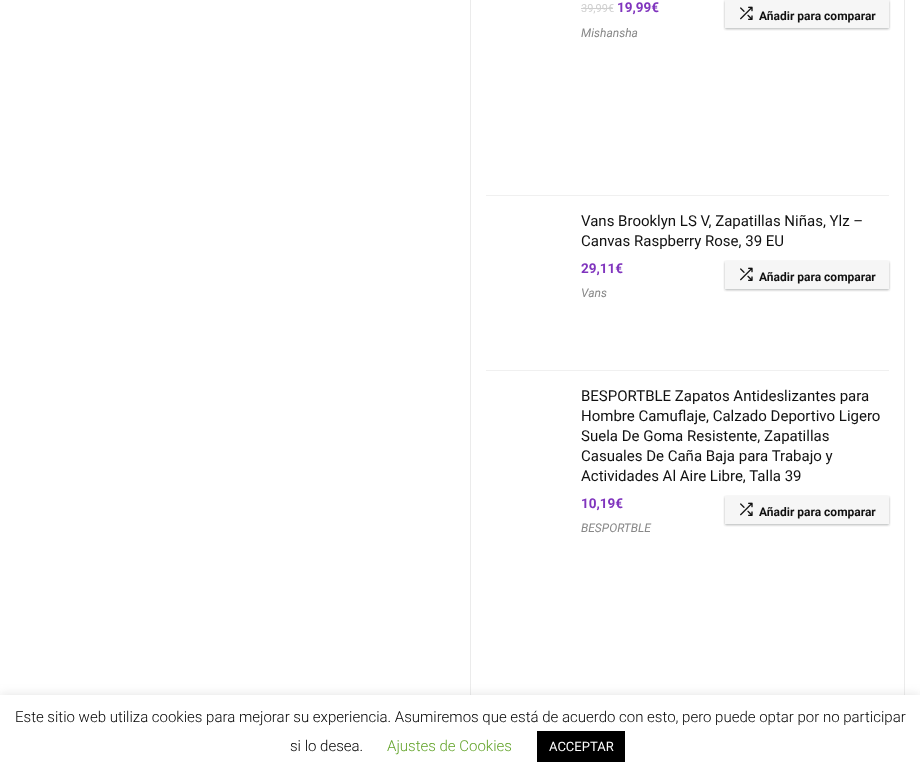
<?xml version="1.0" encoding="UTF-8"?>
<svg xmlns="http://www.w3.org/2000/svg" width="920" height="779">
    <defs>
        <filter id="blur1" x="-50%" y="-200%" width="200%" height="500%"><feGaussianBlur stdDeviation="1"/></filter>
        <filter id="blur2" x="-50%" y="-200%" width="200%" height="500%"><feGaussianBlur stdDeviation="5"/></filter>
    </defs>
    <rect width="100%" height="100%" fill="#FFFFFF"/>
    <rect x="470.5" y="-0.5" width="434" height="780" fill="none" stroke="#EBEBEB"/>
    <rect x="486" y="195" width="403" height="1" fill="#F0F0F0"/>
    <text x="581" y="12" font-family="Roboto" font-size="11" fill="#CFCFCF">39,99€</text>
    <rect x="581" y="8" width="32" height="1" fill="#CFCFCF"/>
    <text x="617" y="12" font-family="Roboto" font-size="13.5" font-weight="700" fill="#8035BE">19,99€</text>
    <text x="581" y="37" font-family="Roboto" font-size="12" font-style="italic" fill="#888888">Mishansha</text>
    <rect x="725" y="1" width="164" height="28" fill="#000000" fill-opacity="0.08" filter="url(#blur1)"/>
    <rect x="725" y="1" width="164" height="28" fill="#3C4043" fill-opacity="0.3" filter="url(#blur1)"/>
    <rect x="725" y="0" width="164" height="28" fill="#F6F6F6"/>
    <image x="740" y="6" width="13" height="14" href="img_01.png"/>
    <text x="759" y="20" font-family="Roboto" font-size="12" font-weight="700" fill="#111111">Añadir para comparar</text>
    <rect x="486" y="370" width="403" height="1" fill="#F0F0F0"/>
    <text font-family="Roboto" font-size="15" fill="#111111">
        <tspan x="581" y="226">Vans Brooklyn LS V, Zapatillas Niñas, Ylz –</tspan>
        <tspan x="581" y="246">Canvas Raspberry Rose, 39 EU</tspan>
    </text>
    <text x="581" y="273" font-family="Roboto" font-size="13.5" font-weight="700" fill="#8035BE">29,11€</text>
    <text x="581" y="297" font-family="Roboto" font-size="12" font-style="italic" fill="#888888">Vans</text>
    <rect x="725" y="262" width="164" height="28" fill="#000000" fill-opacity="0.08" filter="url(#blur1)"/>
    <rect x="725" y="262" width="164" height="28" fill="#3C4043" fill-opacity="0.3" filter="url(#blur1)"/>
    <rect x="725" y="261" width="164" height="28" fill="#F6F6F6"/>
    <image x="740" y="267" width="13" height="14" href="img_01.png"/>
    <text x="759" y="281" font-family="Roboto" font-size="12" font-weight="700" fill="#111111">Añadir para comparar</text>
    <text font-family="Roboto" font-size="15" fill="#111111">
        <tspan x="581" y="401">BESPORTBLE Zapatos Antideslizantes para</tspan>
        <tspan x="581" y="421">Hombre Camuflaje, Calzado Deportivo Ligero</tspan>
        <tspan x="581" y="441">Suela De Goma Resistente, Zapatillas</tspan>
        <tspan x="581" y="461">Casuales De Caña Baja para Trabajo y</tspan>
        <tspan x="581" y="481">Actividades Al Aire Libre, Talla 39</tspan>
    </text>
    <text x="581" y="508" font-family="Roboto" font-size="13.5" font-weight="700" fill="#8035BE">10,19€</text>
    <text x="581" y="532" font-family="Roboto" font-size="12" font-style="italic" fill="#888888">BESPORTBLE</text>
    <rect x="725" y="497" width="164" height="28" fill="#000000" fill-opacity="0.08" filter="url(#blur1)"/>
    <rect x="725" y="497" width="164" height="28" fill="#3C4043" fill-opacity="0.3" filter="url(#blur1)"/>
    <rect x="725" y="496" width="164" height="28" fill="#F6F6F6"/>
    <image x="740" y="502" width="13" height="14" href="img_01.png"/>
    <text x="759" y="516" font-family="Roboto" font-size="12" font-weight="700" fill="#111111">Añadir para comparar</text>
    <rect x="0" y="694" width="920" height="84" fill="#ACABAB" fill-opacity="0.3" filter="url(#blur2)"/>
    <rect x="0" y="695" width="920" height="84" fill="#FFFFFF"/>
    <text x="15" y="722" font-family="Roboto" font-size="15" font-weight="300" fill="#000000">Este sitio web utiliza cookies para mejorar su experiencia. Asumiremos que está de acuerdo con esto, pero puede optar por no participar</text>
    <text x="290" y="751" font-family="Roboto" font-size="15" font-weight="300" fill="#000000">si lo desea.</text>
    <text x="387" y="751" font-family="Roboto" font-size="15" font-weight="300" fill="#62A329">Ajustes de Cookies</text>
    <rect x="537" y="731" width="88" height="31" fill="#000000"/>
    <text x="549" y="751" font-family="Roboto" font-size="13" fill="#FFFFFF">ACCEPTAR</text>
</svg>
